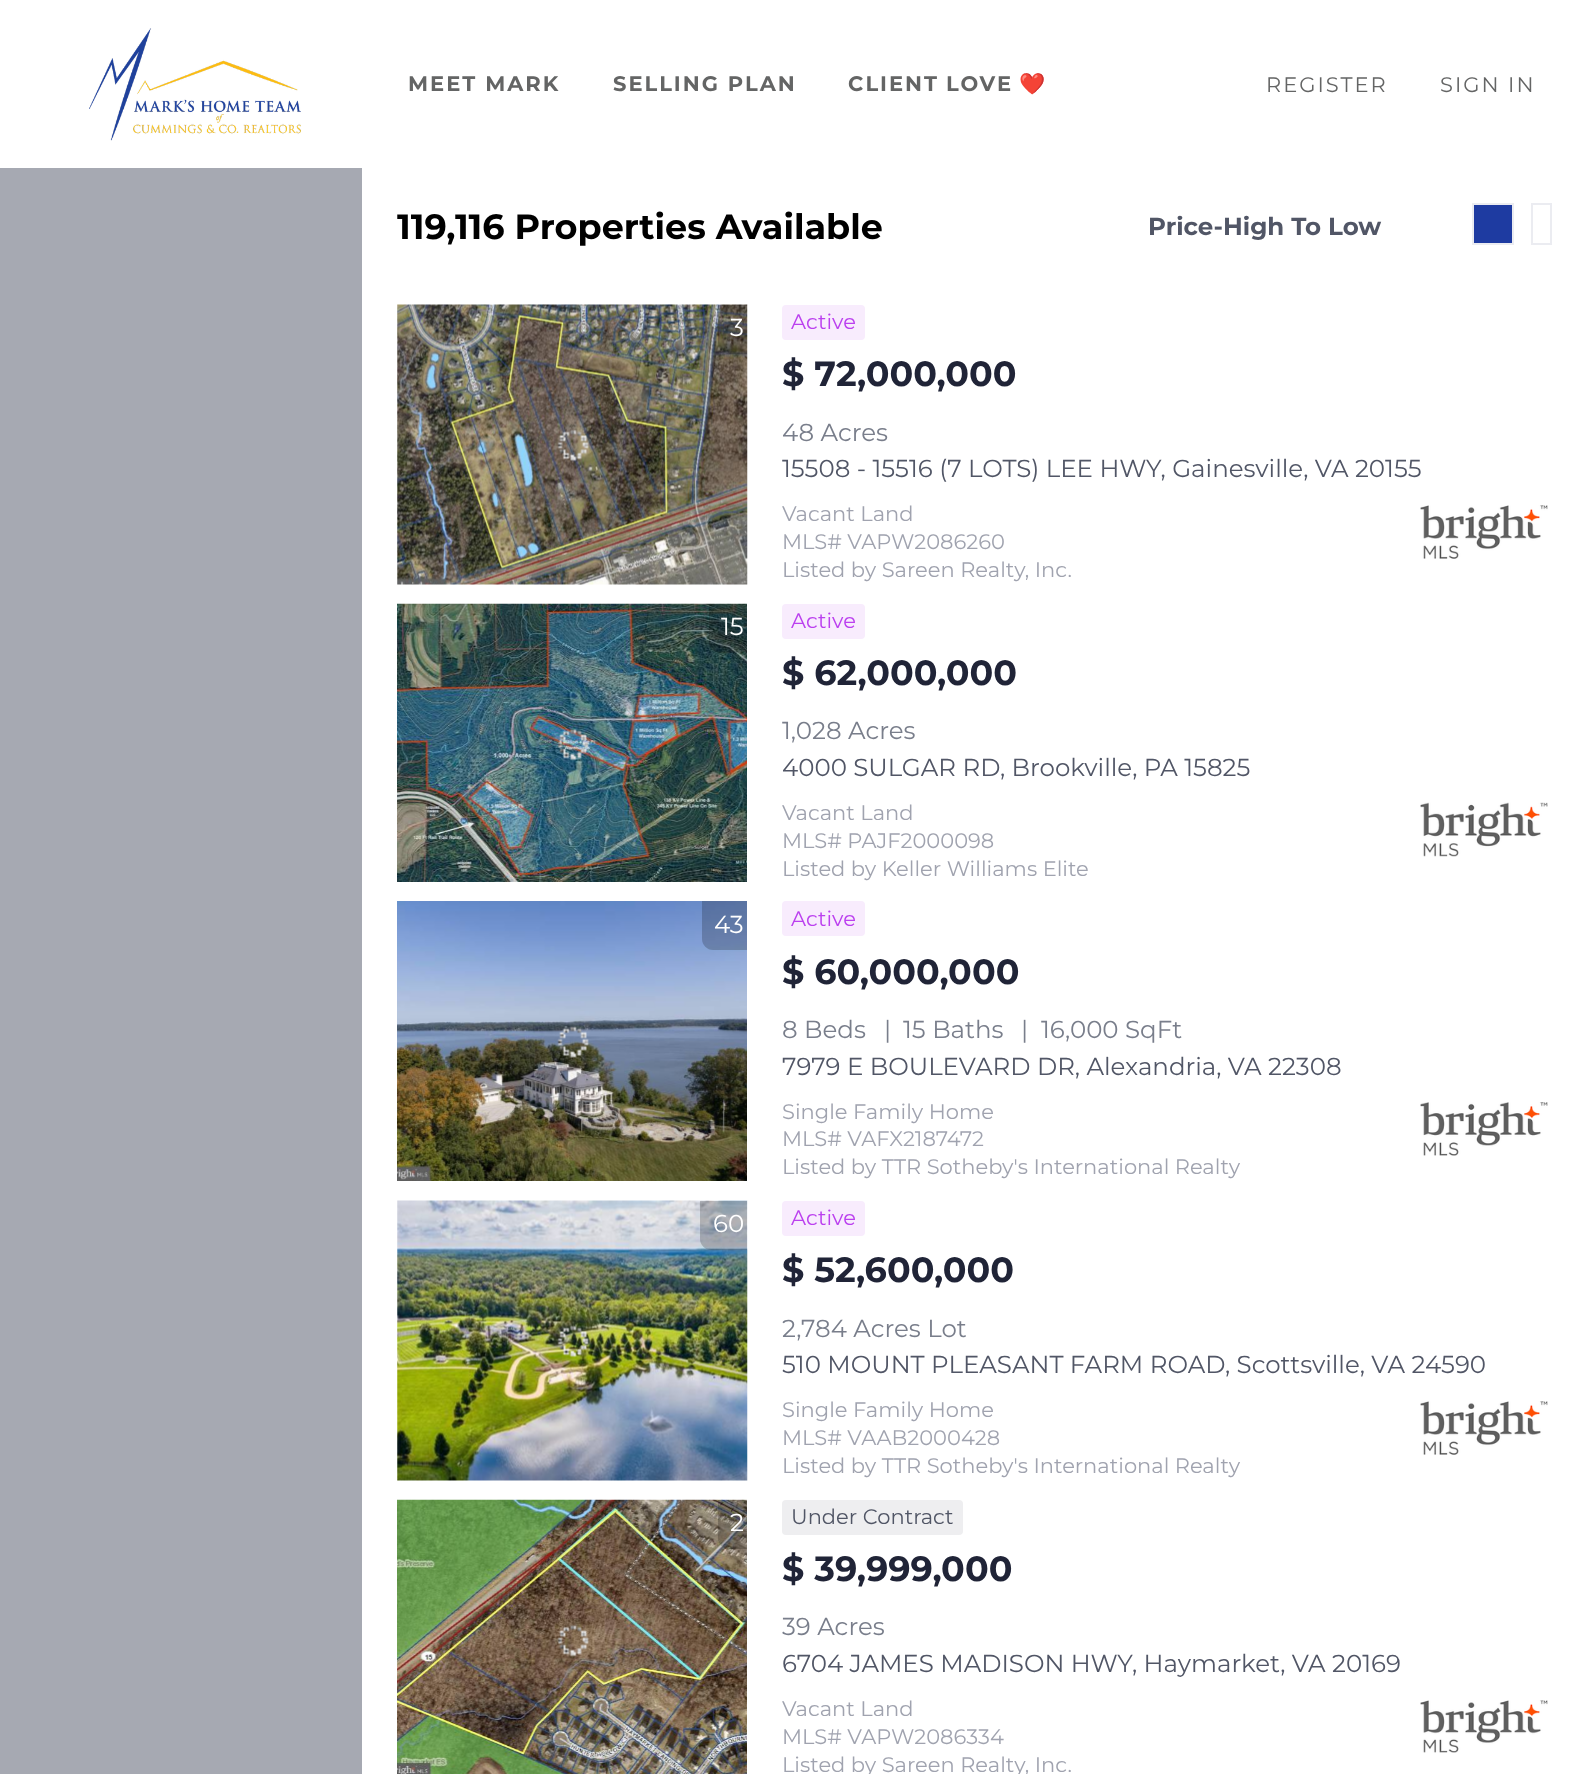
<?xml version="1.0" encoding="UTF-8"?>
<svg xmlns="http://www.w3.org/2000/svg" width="1587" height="1774">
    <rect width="100%" height="100%" fill="#FFFFFF"/>
    <image x="89" y="28" width="212" height="113" href="img_01.png"/>
    <text x="408" y="91" font-family="Montserrat" font-size="21" font-weight="700" letter-spacing="2" fill="#646565">MEET MARK</text>
    <text x="613" y="91" font-family="Montserrat" font-size="21" font-weight="700" letter-spacing="2" fill="#646565">SELLING PLAN</text>
    <text x="848" y="91" word-spacing="-1" font-family="Montserrat" font-size="21" font-weight="700" letter-spacing="2" fill="#646565">CLIENT LOVE</text>
    <text x="1019" y="91" font-family="Noto Color Emoji" font-size="21" letter-spacing="2" fill="#646565">❤️</text>
    <text x="1266" y="92" font-family="Montserrat" font-size="21" letter-spacing="2" fill="#646565">REGISTER</text>
    <text x="1440" y="92" font-family="Montserrat" font-size="21" letter-spacing="2" fill="#646565">SIGN IN</text>
    <rect x="0" y="168" width="362" height="1606" fill="#A6A9B2"/>
    <text x="397" y="239" font-family="Montserrat" font-size="35" font-weight="700" fill="#000000">119,116 Properties Available</text>
    <text x="1148" y="235" font-family="Montserrat" font-size="24.5" font-weight="700" fill="#515666">Price-High To Low</text>
    <rect x="1473" y="204" width="40" height="40" fill="#1E3BA1" stroke="#EBECF1" stroke-width="2"/>
    <rect x="1532" y="204" width="19" height="40" fill="none" stroke="#EBECF1" stroke-width="2"/>
    <image x="397" y="304" width="351" height="281" href="img_02.png"/>
    <image x="557" y="430" width="32" height="32" href="img_03.png"/>
    <path d="M 718 305 H 747 V 354 H 729 C 723 354 718 349 718 343 Z" fill="#000000" fill-opacity="0.2"/>
    <text x="730" y="336" font-family="Montserrat" font-size="24.5" fill="#FFFFFF">3</text>
    <rect x="782" y="305" width="83" height="35" rx="4" fill="#F8ECFD"/>
    <text x="791" y="329" font-family="Montserrat" font-size="21" fill="#BB40EF">Active</text>
    <text x="782" y="386" font-family="Montserrat" font-size="35" font-weight="700" fill="#202437">$ 72,000,000</text>
    <text x="782" y="441" font-family="Montserrat" font-size="24.5" fill="#797E8B">48 Acres</text>
    <text x="782" y="477" font-family="Montserrat" font-size="24.5" fill="#515666">15508 - 15516 (7 LOTS) LEE HWY, Gainesville, VA 20155</text>
    <text font-family="Montserrat" font-size="21" fill="#A0A3AF">
        <tspan x="782" y="521">Vacant Land</tspan>
        <tspan x="782" y="549">MLS# VAPW2086260</tspan>
        <tspan x="782" y="577">Listed by Sareen Realty, Inc.</tspan>
    </text>
    <image x="1420" y="505" width="128" height="54" href="img_04.png"/>
    <image x="397" y="603" width="350" height="279" href="img_05.png"/>
    <image x="557" y="728" width="32" height="33" href="img_06.png"/>
    <path d="M 709 604 H 747 V 653 H 720 C 714 653 709 648 709 642 Z" fill="#000000" fill-opacity="0.2"/>
    <text x="721" y="635" font-family="Montserrat" font-size="24.5" fill="#FFFFFF">15</text>
    <rect x="782" y="604" width="83" height="35" rx="4" fill="#F8ECFD"/>
    <text x="791" y="628" font-family="Montserrat" font-size="21" fill="#BB40EF">Active</text>
    <text x="782" y="685" font-family="Montserrat" font-size="35" font-weight="700" fill="#202437">$ 62,000,000</text>
    <text x="782" y="739" font-family="Montserrat" font-size="24.5" fill="#797E8B">1,028 Acres</text>
    <text x="782" y="776" font-family="Montserrat" font-size="24.5" fill="#515666">4000 SULGAR RD, Brookville, PA 15825</text>
    <text font-family="Montserrat" font-size="21" fill="#A0A3AF">
        <tspan x="782" y="820">Vacant Land</tspan>
        <tspan x="782" y="848">MLS# PAJF2000098</tspan>
        <tspan x="782" y="876">Listed by Keller Williams Elite</tspan>
    </text>
    <image x="1420" y="802" width="128" height="55" href="img_07.png"/>
    <image x="397" y="901" width="350" height="280" href="img_08.png"/>
    <image x="557" y="1026" width="32" height="32" href="img_09.png"/>
    <path d="M 702 901 H 747 V 950 H 713 C 707 950 702 945 702 939 Z" fill="#000000" fill-opacity="0.2"/>
    <text x="714" y="933" font-family="Montserrat" font-size="24.5" fill="#FFFFFF">43</text>
    <rect x="782" y="901" width="83" height="35" rx="4" fill="#F8ECFD"/>
    <text x="791" y="926" font-family="Montserrat" font-size="21" fill="#BB40EF">Active</text>
    <text x="782" y="984" font-family="Montserrat" font-size="35" font-weight="700" fill="#202437">$ 60,000,000</text>
    <text x="782" y="1038" font-family="Montserrat" font-size="24.5" fill="#797E8B">8 Beds</text>
    <text x="884" y="1038" font-family="Montserrat" font-size="24.5" fill="#797E8B">|</text>
    <text x="903" y="1038" font-family="Montserrat" font-size="24.5" fill="#797E8B">15 Baths</text>
    <text x="1021" y="1038" font-family="Montserrat" font-size="24.5" fill="#797E8B">|</text>
    <text x="1041" y="1038" font-family="Montserrat" font-size="24.5" fill="#797E8B">16,000 SqFt</text>
    <text x="782" y="1075" font-family="Montserrat" font-size="24.5" fill="#515666">7979 E BOULEVARD DR, Alexandria, VA 22308</text>
    <text font-family="Montserrat" font-size="21" fill="#A0A3AF">
        <tspan x="782" y="1119">Single Family Home</tspan>
        <tspan x="782" y="1146">MLS# VAFX2187472</tspan>
        <tspan x="782" y="1174">Listed by TTR Sotheby's International Realty</tspan>
    </text>
    <image x="1420" y="1102" width="128" height="54" href="img_10.png"/>
    <image x="397" y="1200" width="351" height="281" href="img_11.png"/>
    <image x="557" y="1325" width="32" height="33" href="img_12.png"/>
    <path d="M 700 1201 H 747 V 1250 H 711 C 705 1250 700 1245 700 1239 Z" fill="#000000" fill-opacity="0.2"/>
    <text x="713" y="1232" font-family="Montserrat" font-size="24.5" fill="#FFFFFF">60</text>
    <rect x="782" y="1201" width="83" height="35" rx="4" fill="#F8ECFD"/>
    <text x="791" y="1225" font-family="Montserrat" font-size="21" fill="#BB40EF">Active</text>
    <text x="782" y="1282" font-family="Montserrat" font-size="35" font-weight="700" fill="#202437">$ 52,600,000</text>
    <text x="782" y="1337" font-family="Montserrat" font-size="24.5" fill="#797E8B">2,784 Acres Lot</text>
    <text x="782" y="1373" font-family="Montserrat" font-size="24.5" fill="#515666">510 MOUNT PLEASANT FARM ROAD, Scottsville, VA 24590</text>
    <text font-family="Montserrat" font-size="21" fill="#A0A3AF">
        <tspan x="782" y="1417">Single Family Home</tspan>
        <tspan x="782" y="1445">MLS# VAAB2000428</tspan>
        <tspan x="782" y="1473">Listed by TTR Sotheby's International Realty</tspan>
    </text>
    <image x="1420" y="1401" width="128" height="54" href="img_04.png"/>
    <image x="397" y="1499" width="350" height="275" href="img_13.png"/>
    <image x="557" y="1625" width="32" height="32" href="img_14.png"/>
    <path d="M 718 1500 H 747 V 1549 H 729 C 723 1549 718 1544 718 1538 Z" fill="#000000" fill-opacity="0.2"/>
    <text x="730" y="1531" font-family="Montserrat" font-size="24.5" fill="#FFFFFF">2</text>
    <rect x="782" y="1500" width="181" height="35" rx="4" fill="#EEEEF0"/>
    <text x="791" y="1524" font-family="Montserrat" font-size="21" fill="#515666">Under Contract</text>
    <text x="782" y="1581" font-family="Montserrat" font-size="35" font-weight="700" fill="#202437">$ 39,999,000</text>
    <text x="782" y="1635" font-family="Montserrat" font-size="24.5" fill="#797E8B">39 Acres</text>
    <text x="782" y="1672" font-family="Montserrat" font-size="24.5" fill="#515666">6704 JAMES MADISON HWY, Haymarket, VA 20169</text>
    <text font-family="Montserrat" font-size="21" fill="#A0A3AF">
        <tspan x="782" y="1716">Vacant Land</tspan>
        <tspan x="782" y="1744">MLS# VAPW2086334</tspan>
        <tspan x="782" y="1772">Listed by Sareen Realty, Inc.</tspan>
    </text>
    <image x="1420" y="1700" width="128" height="53" href="img_15.png"/>
</svg>
